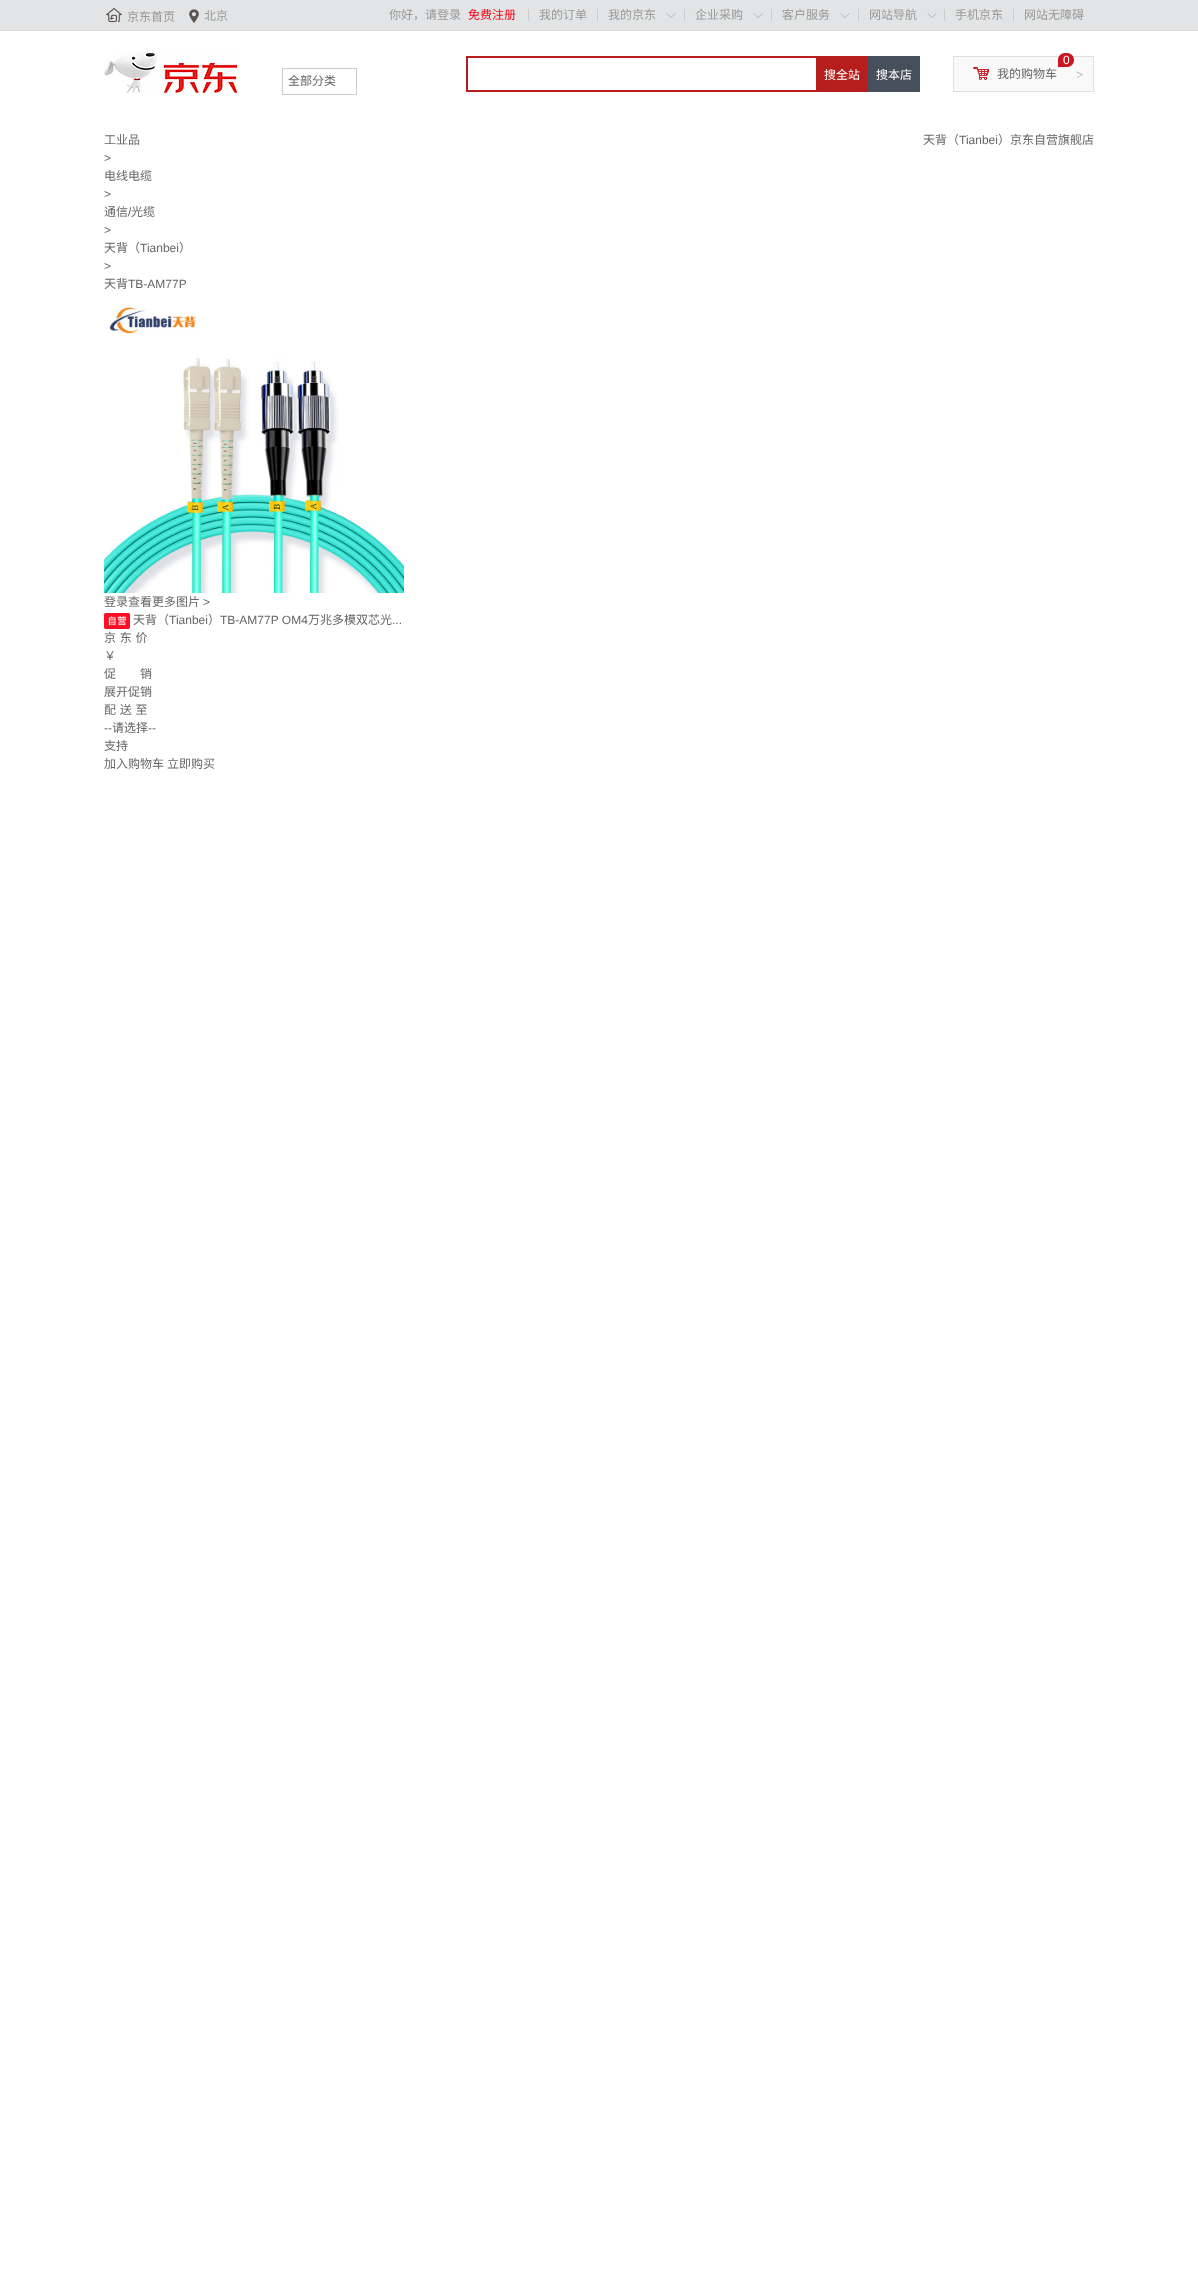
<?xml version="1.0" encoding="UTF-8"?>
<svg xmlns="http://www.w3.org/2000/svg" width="1198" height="2296">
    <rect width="100%" height="100%" fill="#FFFFFF"/>
    <rect x="0" y="0" width="1198" height="30" fill="#E3E4E5"/>
    <rect x="0" y="30" width="1198" height="1" fill="#DDDDDD"/>
    <image x="106" y="8" width="16" height="15" href="img_01.png"/>
    <text x="127" y="21" font-family="Noto Sans CJK SC" font-size="12" fill="#999999">京东首页</text>
    <image x="189" y="9" width="10" height="14" href="img_02.png"/>
    <text x="204" y="20" font-family="Noto Sans CJK SC" font-size="12" fill="#999999">北京</text>
    <text x="389" y="19" font-family="Noto Sans CJK SC" font-size="12" fill="#999999">你好，请登录</text>
    <text x="468" y="19" font-family="Noto Sans CJK SC" font-size="12" fill="#F30213">免费注册</text>
    <rect x="528" y="9" width="1" height="12" fill="#CCCCCC"/>
    <text x="539" y="19" font-family="Noto Sans CJK SC" font-size="12" fill="#999999">我的订单</text>
    <rect x="597" y="9" width="1" height="12" fill="#CCCCCC"/>
    <text x="608" y="19" font-family="Noto Sans CJK SC" font-size="12" fill="#999999">我的京东</text>
    <image x="666" y="13" width="10" height="5" href="img_03.png"/>
    <rect x="684" y="9" width="1" height="12" fill="#CCCCCC"/>
    <text x="695" y="19" font-family="Noto Sans CJK SC" font-size="12" fill="#999999">企业采购</text>
    <image x="753" y="13" width="10" height="5" href="img_03.png"/>
    <rect x="771" y="9" width="1" height="12" fill="#CCCCCC"/>
    <text x="782" y="19" font-family="Noto Sans CJK SC" font-size="12" fill="#999999">客户服务</text>
    <image x="840" y="13" width="10" height="5" href="img_03.png"/>
    <rect x="858" y="9" width="1" height="12" fill="#CCCCCC"/>
    <text x="869" y="19" font-family="Noto Sans CJK SC" font-size="12" fill="#999999">网站导航</text>
    <image x="927" y="13" width="10" height="5" href="img_03.png"/>
    <rect x="944" y="9" width="1" height="12" fill="#CCCCCC"/>
    <text x="955" y="19" font-family="Noto Sans CJK SC" font-size="12" fill="#999999">手机京东</text>
    <rect x="1013" y="9" width="1" height="12" fill="#CCCCCC"/>
    <text x="1024" y="19" font-family="Noto Sans CJK SC" font-size="12" fill="#999999">网站无障碍</text>
    <image x="104" y="51" width="134" height="42" href="img_04.png"/>
    <rect x="282.5" y="68.5" width="74" height="26" fill="none" stroke="#CCCCCC"/>
    <text x="288" y="85" font-family="Noto Sans CJK SC" font-size="12" fill="#666666">全部分类</text>
    <rect x="466" y="56" width="350" height="2" fill="#B61D1D"/>
    <rect x="466" y="90" width="350" height="2" fill="#B61D1D"/>
    <rect x="466" y="56" width="2" height="36" fill="#B61D1D"/>
    <rect x="816" y="56" width="52" height="36" fill="#B61D1D"/>
    <text x="824" y="79" font-family="Noto Sans CJK SC" font-size="12" fill="#FFFFFF">搜全站</text>
    <rect x="868" y="56" width="52" height="36" fill="#474E5C"/>
    <text x="876" y="79" font-family="Noto Sans CJK SC" font-size="12" fill="#FFFFFF">搜本店</text>
    <rect x="953.5" y="56.5" width="140" height="35" fill="#F9F9F9" stroke="#DFDFDF"/>
    <path d="M 1065 53 H 1067 C 1071 53 1074 56 1074 60 C 1074 64 1071 67 1067 67 H 1058 V 60 C 1058 56 1061 53 1065 53 Z" fill="#C81623"/>
    <text x="1063" y="64" font-family="Liberation Sans" font-size="12" fill="#FFFFFF">0</text>
    <image x="973" y="67" width="16" height="13" href="img_05.png"/>
    <text x="997" y="78" font-family="Noto Sans CJK SC" font-size="12" fill="#666666">我的购物车</text>
    <text x="1076" y="79" font-family="Liberation Serif" font-size="13" fill="#999999">&gt;</text>
    <text x="104" y="144" font-family="Noto Sans CJK SC" font-size="12" fill="#666666">工业品</text>
    <text x="104" y="162" font-family="Liberation Sans" font-size="12" fill="#666666">&gt;</text>
    <text x="104" y="180" font-family="Noto Sans CJK SC" font-size="12" fill="#666666">电线电缆</text>
    <text x="104" y="198" font-family="Liberation Sans" font-size="12" fill="#666666">&gt;</text>
    <text x="104" y="216" font-family="Noto Sans CJK SC" font-size="12" fill="#666666">通信</text>
    <text x="128" y="216" font-family="Liberation Sans" font-size="12" fill="#666666">/</text>
    <text x="131" y="216" font-family="Noto Sans CJK SC" font-size="12" fill="#666666">光缆</text>
    <text x="104" y="234" font-family="Liberation Sans" font-size="12" fill="#666666">&gt;</text>
    <text x="104" y="252" font-family="Noto Sans CJK SC" font-size="12" fill="#666666">天背（</text>
    <text x="140" y="252" font-family="Liberation Sans" font-size="12" fill="#666666">Tianbei</text>
    <text x="179" y="252" font-family="Noto Sans CJK SC" font-size="12" fill="#666666">）</text>
    <text x="104" y="270" font-family="Liberation Sans" font-size="12" fill="#666666">&gt;</text>
    <text x="104" y="288" font-family="Noto Sans CJK SC" font-size="12" fill="#666666">天背</text>
    <text x="128" y="288" font-family="Liberation Sans" font-size="12" fill="#666666">TB-AM77P</text>
    <text x="923" y="144" font-family="Noto Sans CJK SC" font-size="12" fill="#666666">天背（</text>
    <text x="959" y="144" font-family="Liberation Sans" font-size="12" fill="#666666">Tianbei</text>
    <text x="998" y="144" font-family="Noto Sans CJK SC" font-size="12" fill="#666666">）京东自营旗舰店</text>
    <image x="104" y="307" width="300" height="286" href="img_06.png"/>
    <text x="104" y="606" font-family="Noto Sans CJK SC" font-size="12" fill="#666666">登录查看更多图片</text>
    <text x="203" y="606" font-family="Liberation Sans" font-size="12" fill="#666666">&gt;</text>
    <image x="104" y="613" width="26" height="16" href="img_07.png"/>
    <text x="133" y="624" font-family="Noto Sans CJK SC" font-size="12" fill="#666666">天背（</text>
    <text x="169" y="624" font-family="Liberation Sans" font-size="12" fill="#666666">Tianbei</text>
    <text x="208" y="624" font-family="Noto Sans CJK SC" font-size="12" fill="#666666">）</text>
    <text x="220" y="624" font-family="Liberation Sans" font-size="12" fill="#666666">TB-AM77P OM4</text>
    <text x="308" y="624" font-family="Noto Sans CJK SC" font-size="12" fill="#666666">万兆多模双芯光</text>
    <text x="392" y="624" font-family="Liberation Sans" font-size="12" fill="#666666">...</text>
    <text font-family="Noto Sans CJK SC" font-size="12" fill="#666666">
        <tspan x="104" y="642" word-spacing="1">京 东 价</tspan>
        <tspan x="104" y="660">￥</tspan>
        <tspan x="104" y="678">促　　销</tspan>
        <tspan x="104" y="696">展开促销</tspan>
        <tspan x="104" y="714" word-spacing="1">配 送 至</tspan>
    </text>
    <text x="104" y="732" font-family="Liberation Sans" font-size="12" fill="#666666">--</text>
    <text x="112" y="732" font-family="Noto Sans CJK SC" font-size="12" fill="#666666">请选择</text>
    <text x="148" y="732" font-family="Liberation Sans" font-size="12" fill="#666666">--</text>
    <text font-family="Noto Sans CJK SC" font-size="12" fill="#666666">
        <tspan x="104" y="750">支持</tspan>
        <tspan x="104" y="768">加入购物车</tspan>
    </text>
    <text x="167" y="768" font-family="Noto Sans CJK SC" font-size="12" fill="#666666">立即购买</text>
</svg>
